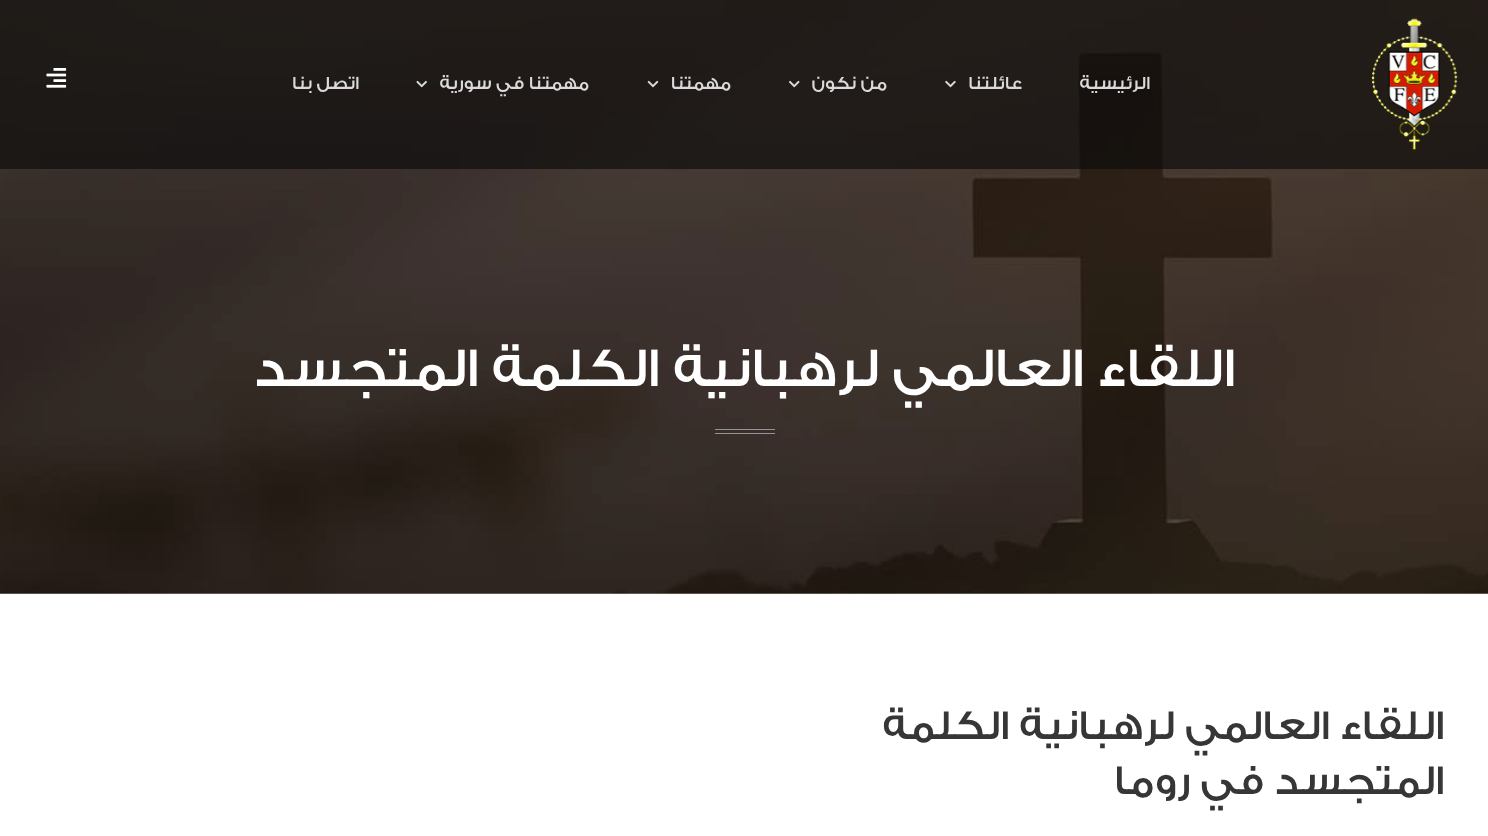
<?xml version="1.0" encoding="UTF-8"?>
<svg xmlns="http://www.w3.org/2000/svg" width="1488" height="836">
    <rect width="100%" height="100%" fill="#FFFFFF"/>
    <image x="0" y="0" width="1488" height="594" href="img_07.png"/>
    <rect x="0" y="0" width="1488" height="169" fill="#0A0A0A" fill-opacity="0.65"/>
    <image x="1371" y="18" width="87" height="132" href="img_01.png"/>
    <text x="1150" y="89" font-family="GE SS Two" font-size="18.75" font-weight="500" direction="rtl" fill="#DADADA">الرئيسية</text>
    <text x="1022" y="89" font-family="GE SS Two" font-size="18.75" font-weight="500" direction="rtl" fill="#DADADA">عائلتنا</text>
    <image x="945" y="80" width="11" height="8" href="img_02.png"/>
    <text x="887" y="89" font-family="GE SS Two" font-size="18.75" font-weight="500" direction="rtl" fill="#DADADA">من نكون</text>
    <image x="789" y="80" width="11" height="8" href="img_03.png"/>
    <text x="731" y="89" font-family="GE SS Two" font-size="18.75" font-weight="500" direction="rtl" fill="#DADADA">مهمتنا</text>
    <image x="647" y="80" width="12" height="8" href="img_04.png"/>
    <text x="589" y="89" font-family="GE SS Two" font-size="18.75" font-weight="500" direction="rtl" fill="#DADADA">مهمتنا في سورية</text>
    <image x="416" y="80" width="11" height="8" href="img_05.png"/>
    <text x="359" y="89" font-family="GE SS Two" font-size="18.75" font-weight="500" direction="rtl" fill="#DADADA">اتصل بنا</text>
    <image x="46" y="68" width="21" height="20" href="img_06.png"/>
    <text x="1235" y="386" font-family="GE SS Two" font-size="56.25" font-weight="500" direction="rtl" fill="#FFFFFF">اللقاء العالمي لرهبانية الكلمة المتجسد</text>
    <rect x="715" y="429" width="60" height="1" fill="#949494"/>
    <rect x="715" y="433" width="60" height="1" fill="#949494"/>
    <text font-family="GE SS Two" font-size="42.5" font-weight="500" direction="rtl" fill="#363636">
        <tspan x="1444" y="739">اللقاء العالمي لرهبانية الكلمة</tspan>
        <tspan x="1444" y="794">المتجسد في روما</tspan>
    </text>
</svg>
